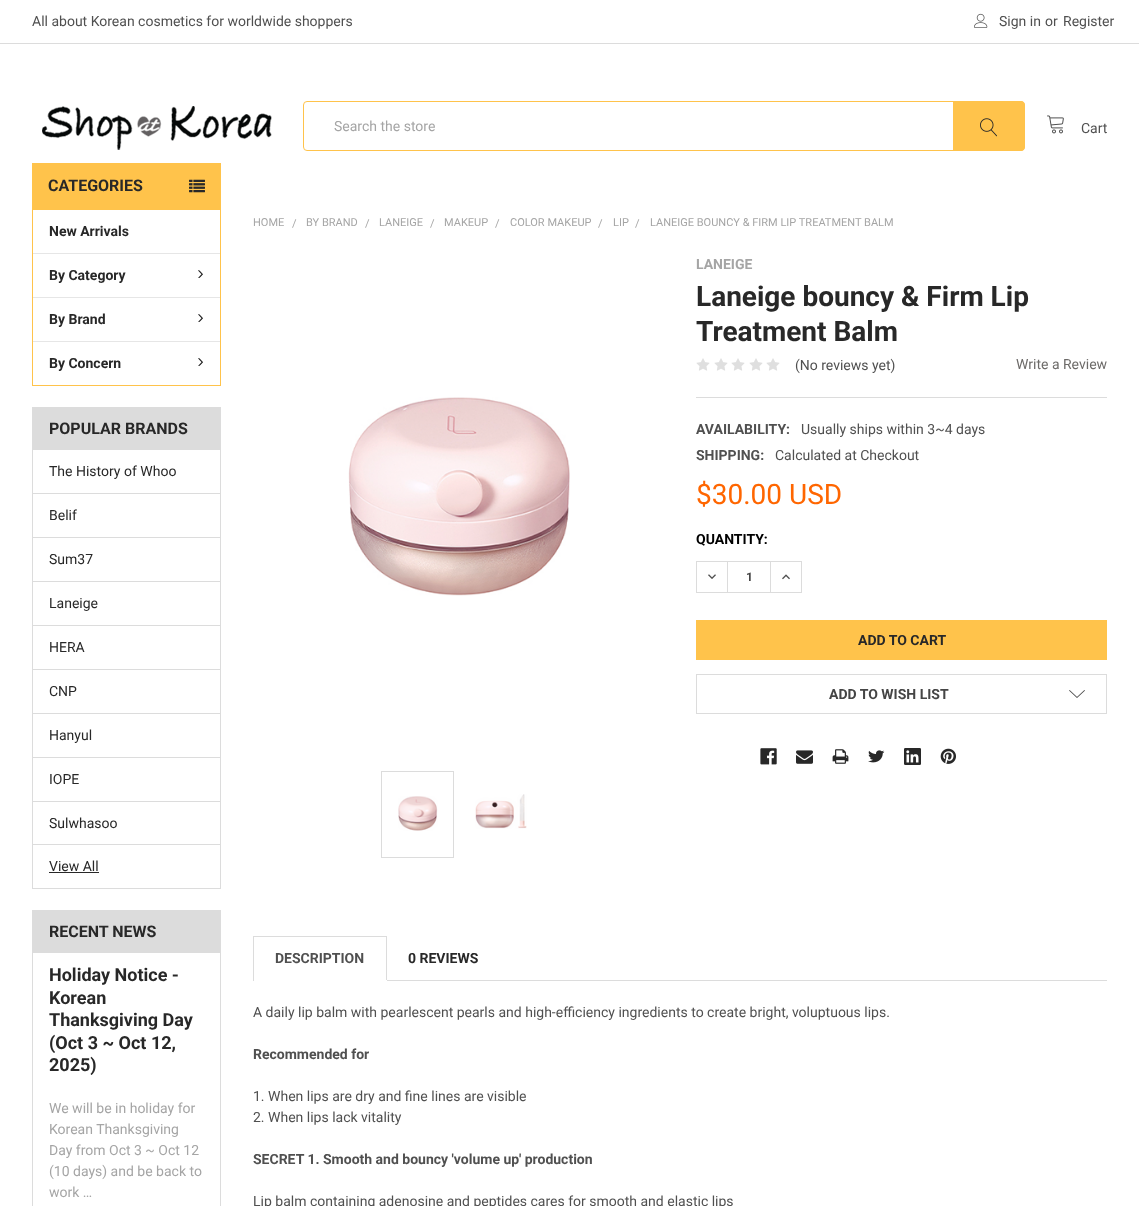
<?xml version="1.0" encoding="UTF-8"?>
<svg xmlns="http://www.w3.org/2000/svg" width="1139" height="1206">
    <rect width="100%" height="100%" fill="#FFFFFF"/>
    <rect x="0" y="43" width="1139" height="1" fill="#DCDCDC"/>
    <text x="32" y="26" font-family="Roboto" font-size="14" fill="#505050">All about Korean cosmetics for worldwide shoppers</text>
    <image x="974" y="13" width="14" height="15" href="img_01.png"/>
    <text x="999" y="26" font-family="Roboto" font-size="14" fill="#505050">Sign in</text>
    <text x="1045" y="26" font-family="Roboto" font-size="14" fill="#505050">or</text>
    <text x="1063" y="26" font-family="Roboto" font-size="14" fill="#505050">Register</text>
    <image x="42" y="106" width="230" height="44" href="img_02.png"/>
    <rect x="303.5" y="101.5" width="721" height="49" rx="3.5" fill="none" stroke="#FFC34B"/>
    <text x="334" y="131" font-family="Roboto" font-size="14" fill="#A5A5A5">Search the store</text>
    <path d="M 953 101 H 1021 C 1023 101 1025 103 1025 105 V 147 C 1025 149 1023 151 1021 151 H 953 Z" fill="#FFC34B"/>
    <image x="980" y="118" width="17" height="19" href="img_03.png"/>
    <image x="1047" y="115" width="17" height="19" href="img_04.png"/>
    <text x="1081" y="133" font-family="Roboto" font-size="14" fill="#505050">Cart</text>
    <rect x="32" y="163" width="189" height="46" fill="#FFC34B"/>
    <text x="48" y="191" font-family="Roboto" font-size="16" font-weight="700" fill="#282828">CATEGORIES</text>
    <image x="189" y="179" width="16" height="14" href="img_05.png"/>
    <rect x="32.5" y="209.5" width="188" height="176" fill="none" stroke="#FFC34B"/>
    <text x="49" y="236" font-family="Roboto" font-size="14" font-weight="700" fill="#282828">New Arrivals</text>
    <rect x="33" y="253" width="187" height="1" fill="#E6E6E6"/>
    <text x="49" y="280" font-family="Roboto" font-size="14" font-weight="700" fill="#282828">By Category</text>
    <image x="198" y="270" width="5" height="8" href="img_06.png"/>
    <rect x="33" y="297" width="187" height="1" fill="#E6E6E6"/>
    <text x="49" y="324" font-family="Roboto" font-size="14" font-weight="700" fill="#282828">By Brand</text>
    <image x="198" y="314" width="5" height="8" href="img_07.png"/>
    <rect x="33" y="341" width="187" height="1" fill="#E6E6E6"/>
    <text x="49" y="368" font-family="Roboto" font-size="14" font-weight="700" fill="#282828">By Concern</text>
    <image x="198" y="358" width="5" height="8" href="img_08.png"/>
    <rect x="32.5" y="407.5" width="188" height="481" fill="none" stroke="#DCDCDC"/>
    <rect x="33" y="408" width="187" height="42" fill="#DCDCDC"/>
    <text x="49" y="434" font-family="Roboto" font-size="16" font-weight="700" fill="#282828">POPULAR BRANDS</text>
    <text x="49" y="476" font-family="Roboto" font-size="14" fill="#282828">The History of Whoo</text>
    <rect x="33" y="493" width="187" height="1" fill="#DCDCDC"/>
    <text x="49" y="520" font-family="Roboto" font-size="14" fill="#282828">Belif</text>
    <rect x="33" y="537" width="187" height="1" fill="#DCDCDC"/>
    <text x="49" y="564" font-family="Roboto" font-size="14" fill="#282828">Sum37</text>
    <rect x="33" y="581" width="187" height="1" fill="#DCDCDC"/>
    <text x="49" y="608" font-family="Roboto" font-size="14" fill="#282828">Laneige</text>
    <rect x="33" y="625" width="187" height="1" fill="#DCDCDC"/>
    <text x="49" y="652" font-family="Roboto" font-size="14" fill="#282828">HERA</text>
    <rect x="33" y="669" width="187" height="1" fill="#DCDCDC"/>
    <text x="49" y="696" font-family="Roboto" font-size="14" fill="#282828">CNP</text>
    <rect x="33" y="713" width="187" height="1" fill="#DCDCDC"/>
    <text x="49" y="740" font-family="Roboto" font-size="14" fill="#282828">Hanyul</text>
    <rect x="33" y="757" width="187" height="1" fill="#DCDCDC"/>
    <text x="49" y="784" font-family="Roboto" font-size="14" fill="#282828">IOPE</text>
    <rect x="33" y="801" width="187" height="1" fill="#DCDCDC"/>
    <text x="49" y="828" font-family="Roboto" font-size="14" fill="#282828">Sulwhasoo</text>
    <rect x="33" y="844" width="187" height="1" fill="#DCDCDC"/>
    <text x="49" y="871" font-family="Roboto" font-size="14" fill="#282828">View All</text>
    <rect x="49" y="872" width="50" height="1" fill="#282828"/>
    <rect x="32.5" y="910.5" width="188" height="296" fill="none" stroke="#DCDCDC"/>
    <rect x="33" y="911" width="187" height="42" fill="#DCDCDC"/>
    <text x="49" y="937" font-family="Roboto" font-size="16" font-weight="700" fill="#282828">RECENT NEWS</text>
    <text font-family="Roboto" font-size="18" font-weight="700" fill="#282828">
        <tspan x="49" y="981">Holiday Notice -</tspan>
        <tspan x="49" y="1004">Korean</tspan>
        <tspan x="49" y="1026">Thanksgiving Day</tspan>
        <tspan x="49" y="1049">(Oct 3 ~ Oct 12,</tspan>
        <tspan x="49" y="1071">2025)</tspan>
    </text>
    <text font-family="Roboto" font-size="14" fill="#A5A5A5">
        <tspan x="49" y="1113">We will be in holiday for</tspan>
        <tspan x="49" y="1134">Korean Thanksgiving</tspan>
        <tspan x="49" y="1155">Day from Oct 3 ~ Oct 12</tspan>
        <tspan x="49" y="1176">(10 days) and be back to</tspan>
        <tspan x="49" y="1197">work …</tspan>
    </text>
    <text x="253" y="226" font-family="Roboto" font-size="11" fill="#A5A5A5">HOME</text>
    <text x="292" y="227" font-family="Roboto" font-size="11" fill="#A5A5A5">/</text>
    <text x="306" y="226" font-family="Roboto" font-size="11" fill="#A5A5A5">BY BRAND</text>
    <text x="365" y="227" font-family="Roboto" font-size="11" fill="#A5A5A5">/</text>
    <text x="379" y="226" font-family="Roboto" font-size="11" fill="#A5A5A5">LANEIGE</text>
    <text x="430" y="227" font-family="Roboto" font-size="11" fill="#A5A5A5">/</text>
    <text x="444" y="226" font-family="Roboto" font-size="11" fill="#A5A5A5">MAKEUP</text>
    <text x="495" y="227" font-family="Roboto" font-size="11" fill="#A5A5A5">/</text>
    <text x="510" y="226" font-family="Roboto" font-size="11" fill="#A5A5A5">COLOR MAKEUP</text>
    <text x="598" y="227" font-family="Roboto" font-size="11" fill="#A5A5A5">/</text>
    <text x="613" y="226" font-family="Roboto" font-size="11" fill="#A5A5A5">LIP</text>
    <text x="635" y="227" font-family="Roboto" font-size="11" fill="#A5A5A5">/</text>
    <text x="650" y="226" font-family="Roboto" font-size="11" fill="#A5A5A5">LANEIGE BOUNCY &amp; FIRM LIP TREATMENT BALM</text>
    <text x="696" y="269" font-family="Roboto" font-size="14" font-weight="700" fill="#A5A5A5">LANEIGE</text>
    <text font-family="Roboto" font-size="28" font-weight="700" fill="#282828">
        <tspan x="696" y="306">Laneige bouncy &amp; Firm Lip</tspan>
        <tspan x="696" y="341">Treatment Balm</tspan>
    </text>
    <image x="696" y="358" width="14" height="13" href="img_09.png"/>
    <image x="714" y="358" width="14" height="13" href="img_09.png"/>
    <image x="731" y="358" width="14" height="13" href="img_09.png"/>
    <image x="749" y="358" width="14" height="13" href="img_09.png"/>
    <image x="766" y="358" width="14" height="13" href="img_09.png"/>
    <text x="795" y="370" font-family="Roboto" font-size="14" fill="#505050">(No reviews yet)</text>
    <text x="1016" y="369" font-family="Roboto" font-size="14" fill="#6D6B69">Write a Review</text>
    <rect x="696" y="397" width="411" height="1" fill="#DCDCDC"/>
    <text x="696" y="434" font-family="Roboto" font-size="14" font-weight="700" fill="#505050">AVAILABILITY:</text>
    <text x="801" y="434" font-family="Roboto" font-size="14" fill="#505050">Usually ships within 3~4 days</text>
    <text x="696" y="460" font-family="Roboto" font-size="14" font-weight="700" fill="#505050">SHIPPING:</text>
    <text x="775" y="460" font-family="Roboto" font-size="14" fill="#505050">Calculated at Checkout</text>
    <image x="348" y="397" width="222" height="199" href="img_10.png"/>
    <rect x="381.5" y="771.5" width="72" height="86" fill="none" stroke="#DCDCDC"/>
    <image x="398" y="796" width="40" height="35" href="img_11.png"/>
    <image x="475" y="794" width="52" height="35" href="img_12.png"/>
    <text x="696" y="504" font-family="Roboto" font-size="28" fill="#FF6600">$30.00 USD</text>
    <text x="696" y="544" font-family="Roboto" font-size="14" font-weight="700" fill="#000000">QUANTITY:</text>
    <rect x="696" y="561" width="106" height="1" fill="#DCDCDC"/>
    <rect x="696" y="592" width="106" height="1" fill="#DCDCDC"/>
    <rect x="727" y="562" width="1" height="30" fill="#DCDCDC"/>
    <rect x="696" y="562" width="1" height="30" fill="#DCDCDC"/>
    <image x="708" y="574" width="8" height="5" href="img_13.png"/>
    <text x="746" y="581" font-family="Roboto" font-size="12" font-weight="700" fill="#454545">1</text>
    <rect x="801" y="562" width="1" height="30" fill="#DCDCDC"/>
    <rect x="770" y="562" width="1" height="30" fill="#DCDCDC"/>
    <image x="782" y="574" width="8" height="6" href="img_14.png"/>
    <rect x="696" y="620" width="411" height="40" fill="#FFC34B"/>
    <text x="858" y="645" font-family="Roboto" font-size="14" font-weight="700" fill="#282828">ADD TO CART</text>
    <rect x="696.5" y="674.5" width="410" height="39" fill="none" stroke="#DCDCDC"/>
    <text x="829" y="699" font-family="Roboto" font-size="14" font-weight="700" fill="#454545">ADD TO WISH LIST</text>
    <image x="1069" y="690" width="16" height="8" href="img_15.png"/>
    <image x="760" y="748" width="17" height="17" href="img_16.png"/>
    <image x="796" y="750" width="17" height="14" href="img_17.png"/>
    <image x="832" y="749" width="17" height="15" href="img_18.png"/>
    <image x="868" y="750" width="17" height="13" href="img_19.png"/>
    <image x="904" y="748" width="17" height="17" href="img_20.png"/>
    <image x="940" y="748" width="16" height="16" href="img_21.png"/>
    <rect x="387" y="980" width="720" height="1" fill="#DCDCDC"/>
    <rect x="253" y="936" width="134" height="1" fill="#DCDCDC"/>
    <rect x="386" y="936" width="1" height="45" fill="#DCDCDC"/>
    <rect x="386" y="980" width="1" height="1" fill="#FFFFFF"/>
    <rect x="253" y="936" width="1" height="45" fill="#DCDCDC"/>
    <text x="275" y="963" font-family="Roboto" font-size="14" font-weight="700" fill="#505050">DESCRIPTION</text>
    <text x="408" y="963" font-family="Roboto" font-size="14" font-weight="700" fill="#282828">0 REVIEWS</text>
    <text x="253" y="1017" font-family="Roboto" font-size="14" fill="#505050">A daily lip balm with pearlescent pearls and high-efficiency ingredients to create bright, voluptuous lips.</text>
    <text x="253" y="1059" font-family="Roboto" font-size="14" font-weight="700" fill="#505050">Recommended for</text>
    <text font-family="Roboto" font-size="14" fill="#505050">
        <tspan x="253" y="1101">1. When lips are dry and fine lines are visible</tspan>
        <tspan x="253" y="1122">2. When lips lack vitality</tspan>
    </text>
    <text x="253" y="1164" font-family="Roboto" font-size="14" font-weight="700" fill="#505050">SECRET 1. Smooth and bouncy 'volume up' production</text>
    <text x="253" y="1206" font-family="Roboto" font-size="14" fill="#505050">Lip balm containing adenosine and peptides cares for smooth and elastic lips</text>
</svg>
